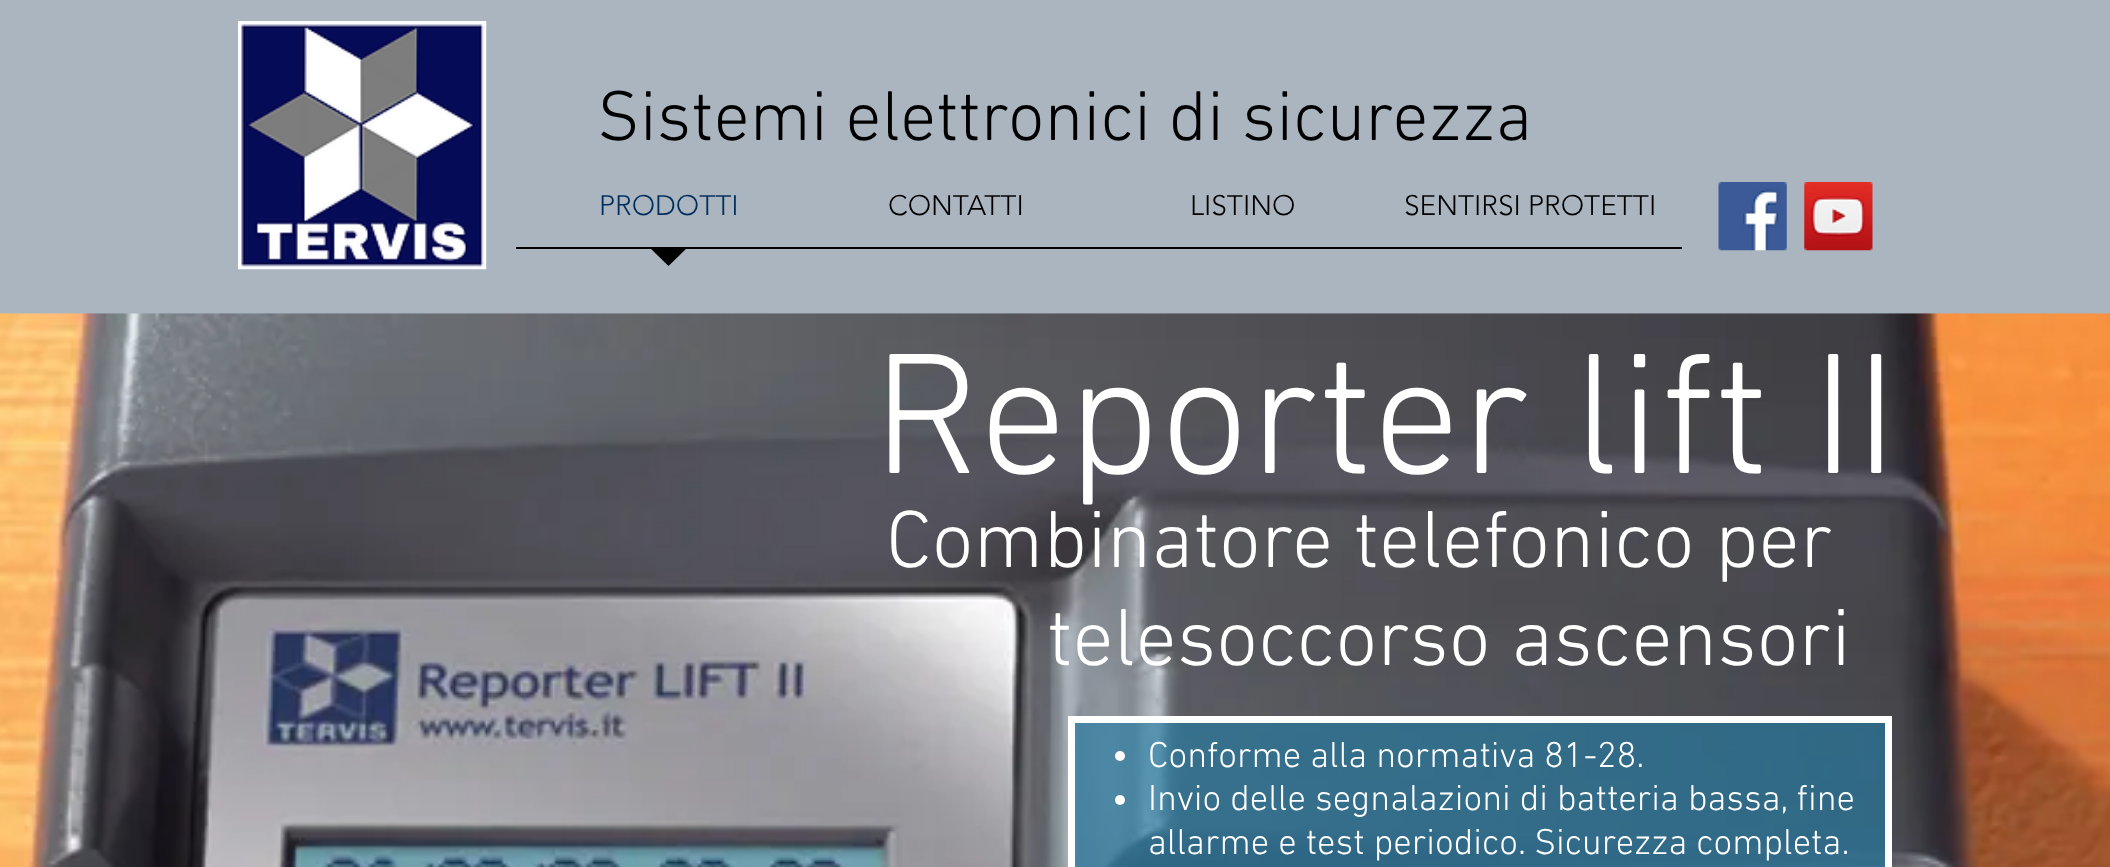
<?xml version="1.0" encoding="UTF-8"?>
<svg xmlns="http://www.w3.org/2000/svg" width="2110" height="867">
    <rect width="100%" height="100%" fill="#AAB5BF"/>
    <image x="238" y="21" width="249" height="249" href="img_01.png"/>
    <text x="597" y="140" font-family="'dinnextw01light'" font-size="71.75" font-weight="300" fill="#000000">Sistemi elettronici di sicurezza</text>
    <text x="599" y="215" font-family="'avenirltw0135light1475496'" font-size="28" font-weight="300" fill="#002E5D">PRODOTTI</text>
    <rect x="516" y="247" width="1166" height="2" fill="#000000"/>
    <path d="M 649 247 H 688 L 668.5 266 Z" fill="#000000"/>
    <text x="888" y="215" font-family="'avenirltw0135light1475496'" font-size="28" font-weight="300" fill="#000000">CONTATTI</text>
    <text x="1190" y="215" font-family="'avenirltw0135light1475496'" font-size="28" font-weight="300" fill="#000000">LISTINO</text>
    <text x="1404" y="215" font-family="'avenirltw0135light1475496'" font-size="28" font-weight="300" fill="#000000">SENTIRSI PROTETTI</text>
    <image x="1718" y="182" width="69" height="69" href="img_02.png"/>
    <image x="1804" y="182" width="69" height="69" href="img_03.png"/>
    <image x="0" y="313" width="2110" height="554" href="img_04.png"/>
    <text x="873" y="473" font-family="'dinnextw01light'" font-size="175" font-weight="300" fill="#FFFFFF">Reporter lift II</text>
    <text x="886" y="567" font-family="'dinnextw01light'" font-size="82.25" font-weight="300" fill="#FFFFFF">Combinatore telefonico per</text>
    <text x="1047" y="665" font-family="'dinnextw01light'" font-size="82.25" font-weight="300" fill="#FFFFFF">telesoccorso ascensori</text>
    <rect x="1071.5" y="719.5" width="817" height="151" fill="#207EA9" fill-opacity="0.61" stroke="#FFFFFF" stroke-width="7"/>
    <circle cx="1120" cy="756" r="5" fill="#FFFFFF"/>
    <text x="1148" y="767" font-family="'dinnextw01light'" font-size="36.75" font-weight="300" fill="#FFFFFF">Conforme alla normativa 81-28.</text>
    <circle cx="1120" cy="800" r="5" fill="#FFFFFF"/>
    <text font-family="'dinnextw01light'" font-size="36.75" font-weight="300" fill="#FFFFFF">
        <tspan x="1148" y="810">Invio delle segnalazioni di batteria bassa, fine</tspan>
        <tspan x="1148" y="854">allarme e test periodico. Sicurezza completa.</tspan>
    </text>
</svg>
